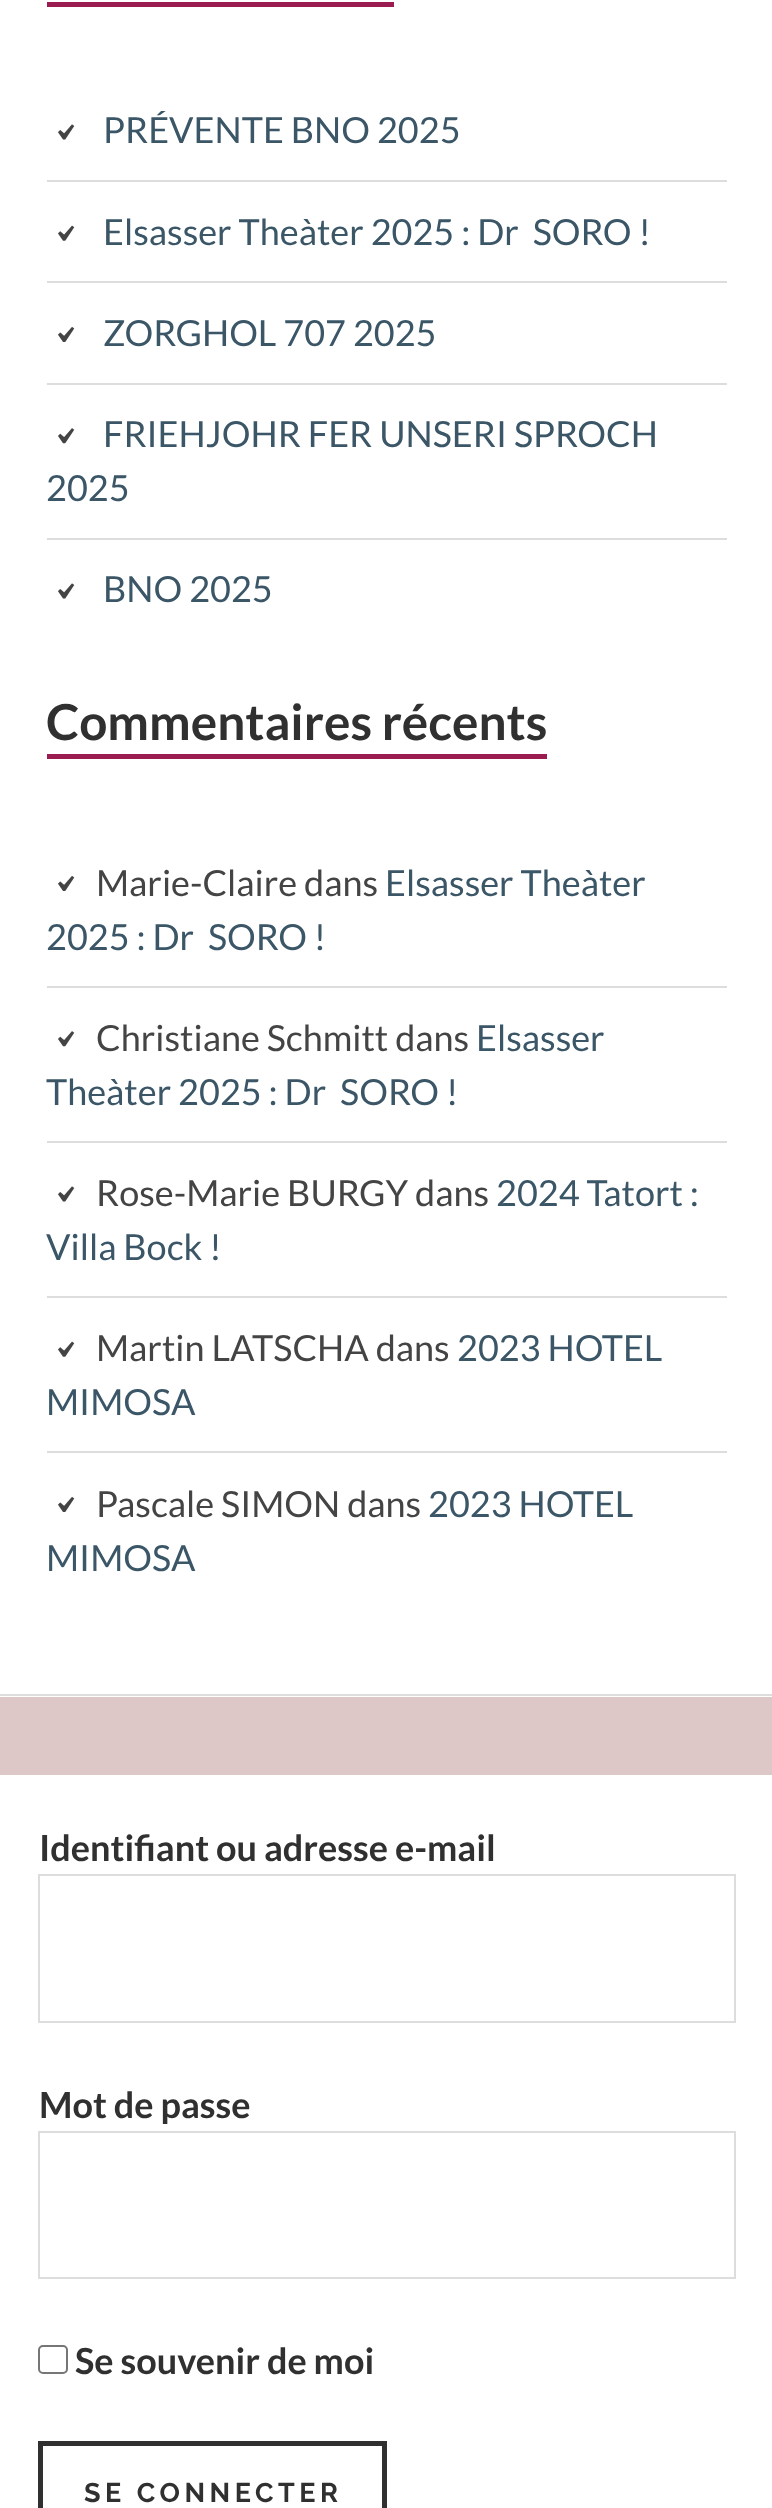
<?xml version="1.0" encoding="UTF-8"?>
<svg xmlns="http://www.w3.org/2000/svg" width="772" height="2508">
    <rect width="100%" height="100%" fill="#DDC7C7"/>
    <rect x="0" y="0" width="772" height="1697" fill="#FFFFFF"/>
    <rect x="0" y="1694" width="772" height="2" fill="#DDDDDD"/>
    <rect x="47" y="2" width="347" height="5" fill="#9B1C51"/>
    <rect x="47" y="180" width="680" height="2" fill="#DDDDDD"/>
    <image x="58" y="124" width="17" height="16" href="img_01.png"/>
    <text x="103" y="143" font-family="Lato" font-size="36" fill="#3B5667">PRÉVENTE BNO 2025</text>
    <rect x="47" y="281" width="680" height="2" fill="#DDDDDD"/>
    <image x="58" y="225" width="17" height="16" href="img_02.png"/>
    <text x="103" y="245" font-family="Lato" font-size="36" fill="#3B5667" xml:space="preserve">Elsasser Theàter 2025 : Dr  SORO !</text>
    <rect x="47" y="383" width="680" height="2" fill="#DDDDDD"/>
    <image x="58" y="326" width="17" height="16" href="img_03.png"/>
    <text x="103" y="346" font-family="Lato" font-size="36" fill="#3B5667">ZORGHOL 707 2025</text>
    <rect x="47" y="538" width="680" height="2" fill="#DDDDDD"/>
    <image x="58" y="428" width="17" height="16" href="img_04.png"/>
    <text x="103" y="447" font-family="Lato" font-size="36" fill="#3B5667">FRIEHJOHR FER UNSERI SPROCH</text>
    <text x="46" y="501" font-family="Lato" font-size="36" fill="#3B5667">2025</text>
    <image x="58" y="583" width="17" height="16" href="img_01.png"/>
    <text x="103" y="602" font-family="Lato" font-size="36" fill="#3B5667">BNO 2025</text>
    <rect x="47" y="754" width="500" height="5" fill="#9B1C51"/>
    <text x="46" y="740" font-family="Lato" font-size="49.5" font-weight="700" fill="#303030">Commentaires récents</text>
    <rect x="47" y="986" width="680" height="2" fill="#DDDDDD"/>
    <image x="58" y="875" width="17" height="16" href="img_03.png"/>
    <text x="96" y="896" font-family="Lato" font-size="36" fill="#444444">Marie-Claire dans</text>
    <text x="385" y="896" font-family="Lato" font-size="36" fill="#3B5667">Elsasser Theàter</text>
    <text x="46" y="950" font-family="Lato" font-size="36" fill="#3B5667" xml:space="preserve">2025 : Dr  SORO !</text>
    <rect x="47" y="1141" width="680" height="2" fill="#DDDDDD"/>
    <image x="58" y="1031" width="17" height="16" href="img_04.png"/>
    <text x="96" y="1051" font-family="Lato" font-size="36" fill="#444444">Christiane Schmitt dans</text>
    <text x="476" y="1051" font-family="Lato" font-size="36" fill="#3B5667">Elsasser</text>
    <text x="46" y="1105" font-family="Lato" font-size="36" fill="#3B5667" xml:space="preserve">Theàter 2025 : Dr  SORO !</text>
    <rect x="47" y="1296" width="680" height="2" fill="#DDDDDD"/>
    <image x="58" y="1186" width="17" height="16" href="img_01.png"/>
    <text x="96" y="1206" font-family="Lato" font-size="36" fill="#444444">Rose-Marie BURGY dans</text>
    <text x="496" y="1206" font-family="Lato" font-size="36" fill="#3B5667">2024 Tatort :</text>
    <text x="46" y="1260" font-family="Lato" font-size="36" fill="#3B5667">Villa Bock !</text>
    <rect x="47" y="1451" width="680" height="2" fill="#DDDDDD"/>
    <image x="58" y="1341" width="17" height="16" href="img_02.png"/>
    <text x="96" y="1361" font-family="Lato" font-size="36" fill="#444444">Martin LATSCHA dans</text>
    <text x="457" y="1361" font-family="Lato" font-size="36" fill="#3B5667">2023 HOTEL</text>
    <text x="46" y="1415" font-family="Lato" font-size="36" fill="#3B5667">MIMOSA</text>
    <image x="58" y="1496" width="17" height="16" href="img_03.png"/>
    <text x="96" y="1517" font-family="Lato" font-size="36" fill="#444444">Pascale SIMON dans</text>
    <text x="428" y="1517" font-family="Lato" font-size="36" fill="#3B5667">2023 HOTEL</text>
    <text x="46" y="1571" font-family="Lato" font-size="36" fill="#3B5667">MIMOSA</text>
    <rect x="0" y="1775" width="772" height="733" fill="#FFFFFF"/>
    <text x="39" y="1861" font-family="Lato" font-size="36" font-weight="700" fill="#303030">Identifiant ou adresse e-mail</text>
    <rect x="39" y="1875" width="696" height="147" fill="none" stroke="#DDDDDD" stroke-width="2"/>
    <text x="39" y="2118" font-family="Lato" font-size="36" font-weight="700" fill="#303030">Mot de passe</text>
    <rect x="39" y="2132" width="696" height="146" fill="none" stroke="#DDDDDD" stroke-width="2"/>
    <rect x="39" y="2346" width="28" height="27" rx="4" fill="none" stroke="#767676" stroke-width="2"/>
    <text x="75" y="2374" font-family="Lato" font-size="36" font-weight="700" fill="#303030">Se souvenir de moi</text>
    <rect x="40.5" y="2443.5" width="344" height="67" fill="none" stroke="#303030" stroke-width="5"/>
    <text x="84" y="2502" font-family="Raleway" font-size="27" font-weight="700" letter-spacing="4.5" fill="#303030">SE CONNECTER</text>
</svg>
